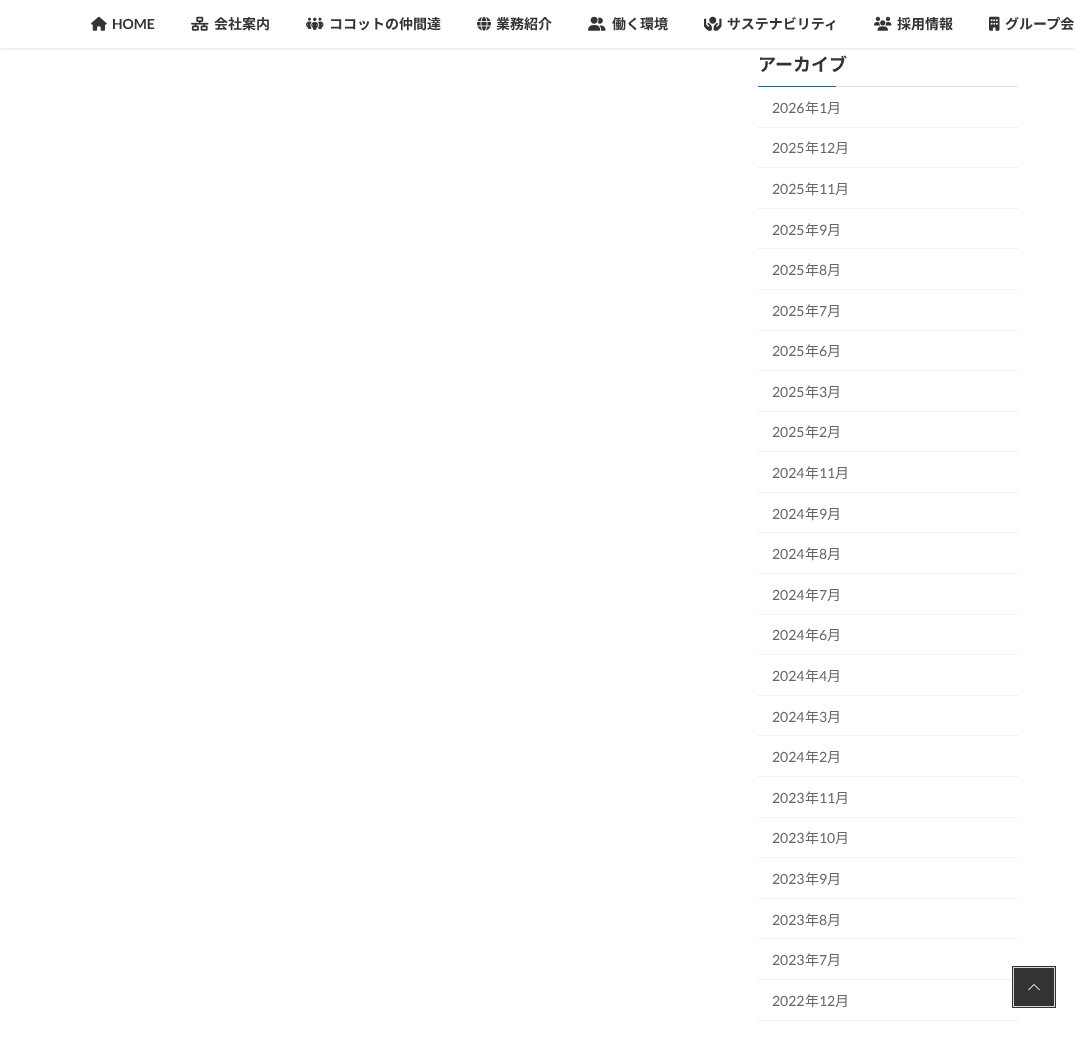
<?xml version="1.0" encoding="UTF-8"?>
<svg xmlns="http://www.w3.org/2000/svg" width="1075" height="1037">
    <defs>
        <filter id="blur1" x="-50%" y="-200%" width="200%" height="500%"><feGaussianBlur stdDeviation="1.5"/></filter>
    </defs>
    <rect width="100%" height="100%" fill="#FFFFFF"/>
    <rect x="1014" y="968" width="40" height="38" fill="#333333"/>
    <rect x="0" y="1" width="1075" height="48" fill="#000000" fill-opacity="0.1" filter="url(#blur1)"/>
    <rect x="0" y="0" width="1075" height="48" fill="#FFFFFF"/>
    <image x="91" y="16" width="16" height="15" href="img_01.png"/>
    <text x="112" y="29" font-family="Lato" font-size="14" font-weight="700" fill="#333333">HOME</text>
    <image x="191" y="16" width="18" height="15" href="img_02.png"/>
    <text x="214" y="29" font-family="Noto Sans JP" font-size="14" font-weight="700" fill="#333333">会社案内</text>
    <image x="306" y="17" width="18" height="13" href="img_03.png"/>
    <text x="329" y="29" font-family="Noto Sans JP" font-size="14" font-weight="700" fill="#333333">ココットの仲間達</text>
    <image x="477" y="16" width="14" height="15" href="img_04.png"/>
    <text x="496" y="29" font-family="Noto Sans JP" font-size="14" font-weight="700" fill="#333333">業務紹介</text>
    <image x="588" y="16" width="18" height="15" href="img_05.png"/>
    <text x="612" y="29" font-family="Noto Sans JP" font-size="14" font-weight="700" fill="#333333">働く環境</text>
    <image x="704" y="16" width="18" height="15" href="img_06.png"/>
    <text x="727" y="29" font-family="Noto Sans JP" font-size="14" font-weight="700" fill="#333333">サステナビリティ</text>
    <image x="874" y="16" width="18" height="15" href="img_07.png"/>
    <text x="897" y="29" font-family="Noto Sans JP" font-size="14" font-weight="700" fill="#333333">採用情報</text>
    <image x="989" y="16" width="11" height="15" href="img_08.png"/>
    <text x="1005" y="29" font-family="Noto Sans JP" font-size="14" font-weight="700" fill="#333333">グループ会</text>
    <rect x="836" y="86" width="182" height="1" fill="#E0E0E0"/>
    <text x="758" y="71" font-family="Noto Sans JP" font-size="18" font-weight="700" fill="#333333">アーカイブ</text>
    <rect x="758" y="86" width="78" height="1" fill="#007193"/>
    <rect x="758" y="127" width="260" height="1" fill="#F0F0F0"/>
    <text x="772" y="113" font-family="Lato" font-size="14" fill="#666666">2026</text>
    <text x="805" y="113" font-family="Noto Sans JP" font-size="14" fill="#666666">年</text>
    <text x="819" y="113" font-family="Lato" font-size="14" fill="#666666">1</text>
    <text x="827" y="113" font-family="Noto Sans JP" font-size="14" fill="#666666">月</text>
    <rect x="758" y="167" width="260" height="1" fill="#F0F0F0"/>
    <text x="772" y="153" font-family="Lato" font-size="14" fill="#666666">2025</text>
    <text x="805" y="153" font-family="Noto Sans JP" font-size="14" fill="#666666">年</text>
    <text x="819" y="153" font-family="Lato" font-size="14" fill="#666666">12</text>
    <text x="835" y="153" font-family="Noto Sans JP" font-size="14" fill="#666666">月</text>
    <rect x="758" y="208" width="260" height="1" fill="#F0F0F0"/>
    <text x="772" y="194" font-family="Lato" font-size="14" fill="#666666">2025</text>
    <text x="805" y="194" font-family="Noto Sans JP" font-size="14" fill="#666666">年</text>
    <text x="819" y="194" font-family="Lato" font-size="14" fill="#666666">11</text>
    <text x="835" y="194" font-family="Noto Sans JP" font-size="14" fill="#666666">月</text>
    <rect x="758" y="248" width="260" height="1" fill="#F0F0F0"/>
    <text x="772" y="235" font-family="Lato" font-size="14" fill="#666666">2025</text>
    <text x="805" y="235" font-family="Noto Sans JP" font-size="14" fill="#666666">年</text>
    <text x="819" y="235" font-family="Lato" font-size="14" fill="#666666">9</text>
    <text x="827" y="235" font-family="Noto Sans JP" font-size="14" fill="#666666">月</text>
    <rect x="758" y="289" width="260" height="1" fill="#F0F0F0"/>
    <text x="772" y="275" font-family="Lato" font-size="14" fill="#666666">2025</text>
    <text x="805" y="275" font-family="Noto Sans JP" font-size="14" fill="#666666">年</text>
    <text x="819" y="275" font-family="Lato" font-size="14" fill="#666666">8</text>
    <text x="827" y="275" font-family="Noto Sans JP" font-size="14" fill="#666666">月</text>
    <rect x="758" y="330" width="260" height="1" fill="#F0F0F0"/>
    <text x="772" y="316" font-family="Lato" font-size="14" fill="#666666">2025</text>
    <text x="805" y="316" font-family="Noto Sans JP" font-size="14" fill="#666666">年</text>
    <text x="819" y="316" font-family="Lato" font-size="14" fill="#666666">7</text>
    <text x="827" y="316" font-family="Noto Sans JP" font-size="14" fill="#666666">月</text>
    <rect x="758" y="370" width="260" height="1" fill="#F0F0F0"/>
    <text x="772" y="356" font-family="Lato" font-size="14" fill="#666666">2025</text>
    <text x="805" y="356" font-family="Noto Sans JP" font-size="14" fill="#666666">年</text>
    <text x="819" y="356" font-family="Lato" font-size="14" fill="#666666">6</text>
    <text x="827" y="356" font-family="Noto Sans JP" font-size="14" fill="#666666">月</text>
    <rect x="758" y="411" width="260" height="1" fill="#F0F0F0"/>
    <text x="772" y="397" font-family="Lato" font-size="14" fill="#666666">2025</text>
    <text x="805" y="397" font-family="Noto Sans JP" font-size="14" fill="#666666">年</text>
    <text x="819" y="397" font-family="Lato" font-size="14" fill="#666666">3</text>
    <text x="827" y="397" font-family="Noto Sans JP" font-size="14" fill="#666666">月</text>
    <rect x="758" y="451" width="260" height="1" fill="#F0F0F0"/>
    <text x="772" y="437" font-family="Lato" font-size="14" fill="#666666">2025</text>
    <text x="805" y="437" font-family="Noto Sans JP" font-size="14" fill="#666666">年</text>
    <text x="819" y="437" font-family="Lato" font-size="14" fill="#666666">2</text>
    <text x="827" y="437" font-family="Noto Sans JP" font-size="14" fill="#666666">月</text>
    <rect x="758" y="492" width="260" height="1" fill="#F0F0F0"/>
    <text x="772" y="478" font-family="Lato" font-size="14" fill="#666666">2024</text>
    <text x="805" y="478" font-family="Noto Sans JP" font-size="14" fill="#666666">年</text>
    <text x="819" y="478" font-family="Lato" font-size="14" fill="#666666">11</text>
    <text x="835" y="478" font-family="Noto Sans JP" font-size="14" fill="#666666">月</text>
    <rect x="758" y="532" width="260" height="1" fill="#F0F0F0"/>
    <text x="772" y="519" font-family="Lato" font-size="14" fill="#666666">2024</text>
    <text x="805" y="519" font-family="Noto Sans JP" font-size="14" fill="#666666">年</text>
    <text x="819" y="519" font-family="Lato" font-size="14" fill="#666666">9</text>
    <text x="827" y="519" font-family="Noto Sans JP" font-size="14" fill="#666666">月</text>
    <rect x="758" y="573" width="260" height="1" fill="#F0F0F0"/>
    <text x="772" y="559" font-family="Lato" font-size="14" fill="#666666">2024</text>
    <text x="805" y="559" font-family="Noto Sans JP" font-size="14" fill="#666666">年</text>
    <text x="819" y="559" font-family="Lato" font-size="14" fill="#666666">8</text>
    <text x="827" y="559" font-family="Noto Sans JP" font-size="14" fill="#666666">月</text>
    <rect x="758" y="614" width="260" height="1" fill="#F0F0F0"/>
    <text x="772" y="600" font-family="Lato" font-size="14" fill="#666666">2024</text>
    <text x="805" y="600" font-family="Noto Sans JP" font-size="14" fill="#666666">年</text>
    <text x="819" y="600" font-family="Lato" font-size="14" fill="#666666">7</text>
    <text x="827" y="600" font-family="Noto Sans JP" font-size="14" fill="#666666">月</text>
    <rect x="758" y="654" width="260" height="1" fill="#F0F0F0"/>
    <text x="772" y="640" font-family="Lato" font-size="14" fill="#666666">2024</text>
    <text x="805" y="640" font-family="Noto Sans JP" font-size="14" fill="#666666">年</text>
    <text x="819" y="640" font-family="Lato" font-size="14" fill="#666666">6</text>
    <text x="827" y="640" font-family="Noto Sans JP" font-size="14" fill="#666666">月</text>
    <rect x="758" y="695" width="260" height="1" fill="#F0F0F0"/>
    <text x="772" y="681" font-family="Lato" font-size="14" fill="#666666">2024</text>
    <text x="805" y="681" font-family="Noto Sans JP" font-size="14" fill="#666666">年</text>
    <text x="819" y="681" font-family="Lato" font-size="14" fill="#666666">4</text>
    <text x="827" y="681" font-family="Noto Sans JP" font-size="14" fill="#666666">月</text>
    <rect x="758" y="735" width="260" height="1" fill="#F0F0F0"/>
    <text x="772" y="722" font-family="Lato" font-size="14" fill="#666666">2024</text>
    <text x="805" y="722" font-family="Noto Sans JP" font-size="14" fill="#666666">年</text>
    <text x="819" y="722" font-family="Lato" font-size="14" fill="#666666">3</text>
    <text x="827" y="722" font-family="Noto Sans JP" font-size="14" fill="#666666">月</text>
    <rect x="758" y="776" width="260" height="1" fill="#F0F0F0"/>
    <text x="772" y="762" font-family="Lato" font-size="14" fill="#666666">2024</text>
    <text x="805" y="762" font-family="Noto Sans JP" font-size="14" fill="#666666">年</text>
    <text x="819" y="762" font-family="Lato" font-size="14" fill="#666666">2</text>
    <text x="827" y="762" font-family="Noto Sans JP" font-size="14" fill="#666666">月</text>
    <rect x="758" y="817" width="260" height="1" fill="#F0F0F0"/>
    <text x="772" y="803" font-family="Lato" font-size="14" fill="#666666">2023</text>
    <text x="805" y="803" font-family="Noto Sans JP" font-size="14" fill="#666666">年</text>
    <text x="819" y="803" font-family="Lato" font-size="14" fill="#666666">11</text>
    <text x="835" y="803" font-family="Noto Sans JP" font-size="14" fill="#666666">月</text>
    <rect x="758" y="857" width="260" height="1" fill="#F0F0F0"/>
    <text x="772" y="843" font-family="Lato" font-size="14" fill="#666666">2023</text>
    <text x="805" y="843" font-family="Noto Sans JP" font-size="14" fill="#666666">年</text>
    <text x="819" y="843" font-family="Lato" font-size="14" fill="#666666">10</text>
    <text x="835" y="843" font-family="Noto Sans JP" font-size="14" fill="#666666">月</text>
    <rect x="758" y="898" width="260" height="1" fill="#F0F0F0"/>
    <text x="772" y="884" font-family="Lato" font-size="14" fill="#666666">2023</text>
    <text x="805" y="884" font-family="Noto Sans JP" font-size="14" fill="#666666">年</text>
    <text x="819" y="884" font-family="Lato" font-size="14" fill="#666666">9</text>
    <text x="827" y="884" font-family="Noto Sans JP" font-size="14" fill="#666666">月</text>
    <rect x="758" y="938" width="260" height="1" fill="#F0F0F0"/>
    <text x="772" y="925" font-family="Lato" font-size="14" fill="#666666">2023</text>
    <text x="805" y="925" font-family="Noto Sans JP" font-size="14" fill="#666666">年</text>
    <text x="819" y="925" font-family="Lato" font-size="14" fill="#666666">8</text>
    <text x="827" y="925" font-family="Noto Sans JP" font-size="14" fill="#666666">月</text>
    <rect x="758" y="979" width="260" height="1" fill="#F0F0F0"/>
    <rect x="1014" y="979" width="4" height="1" fill="#303030"/>
    <text x="772" y="965" font-family="Lato" font-size="14" fill="#666666">2023</text>
    <text x="805" y="965" font-family="Noto Sans JP" font-size="14" fill="#666666">年</text>
    <text x="819" y="965" font-family="Lato" font-size="14" fill="#666666">7</text>
    <text x="827" y="965" font-family="Noto Sans JP" font-size="14" fill="#666666">月</text>
    <rect x="758" y="1020" width="260" height="1" fill="#F0F0F0"/>
    <text x="772" y="1006" font-family="Lato" font-size="14" fill="#666666">2022</text>
    <text x="805" y="1006" font-family="Noto Sans JP" font-size="14" fill="#666666">年</text>
    <text x="819" y="1006" font-family="Lato" font-size="14" fill="#666666">12</text>
    <text x="835" y="1006" font-family="Noto Sans JP" font-size="14" fill="#666666">月</text>
    <rect x="1013" y="967" width="42" height="40" fill="none" stroke="#000000" stroke-opacity="0.8" stroke-width="2"/>
    <rect x="1013.5" y="967.5" width="41" height="39" fill="none" stroke="#FFFFFF" stroke-opacity="0.8"/>
    <image x="1028" y="984" width="12" height="7" href="img_09.png"/>
</svg>
